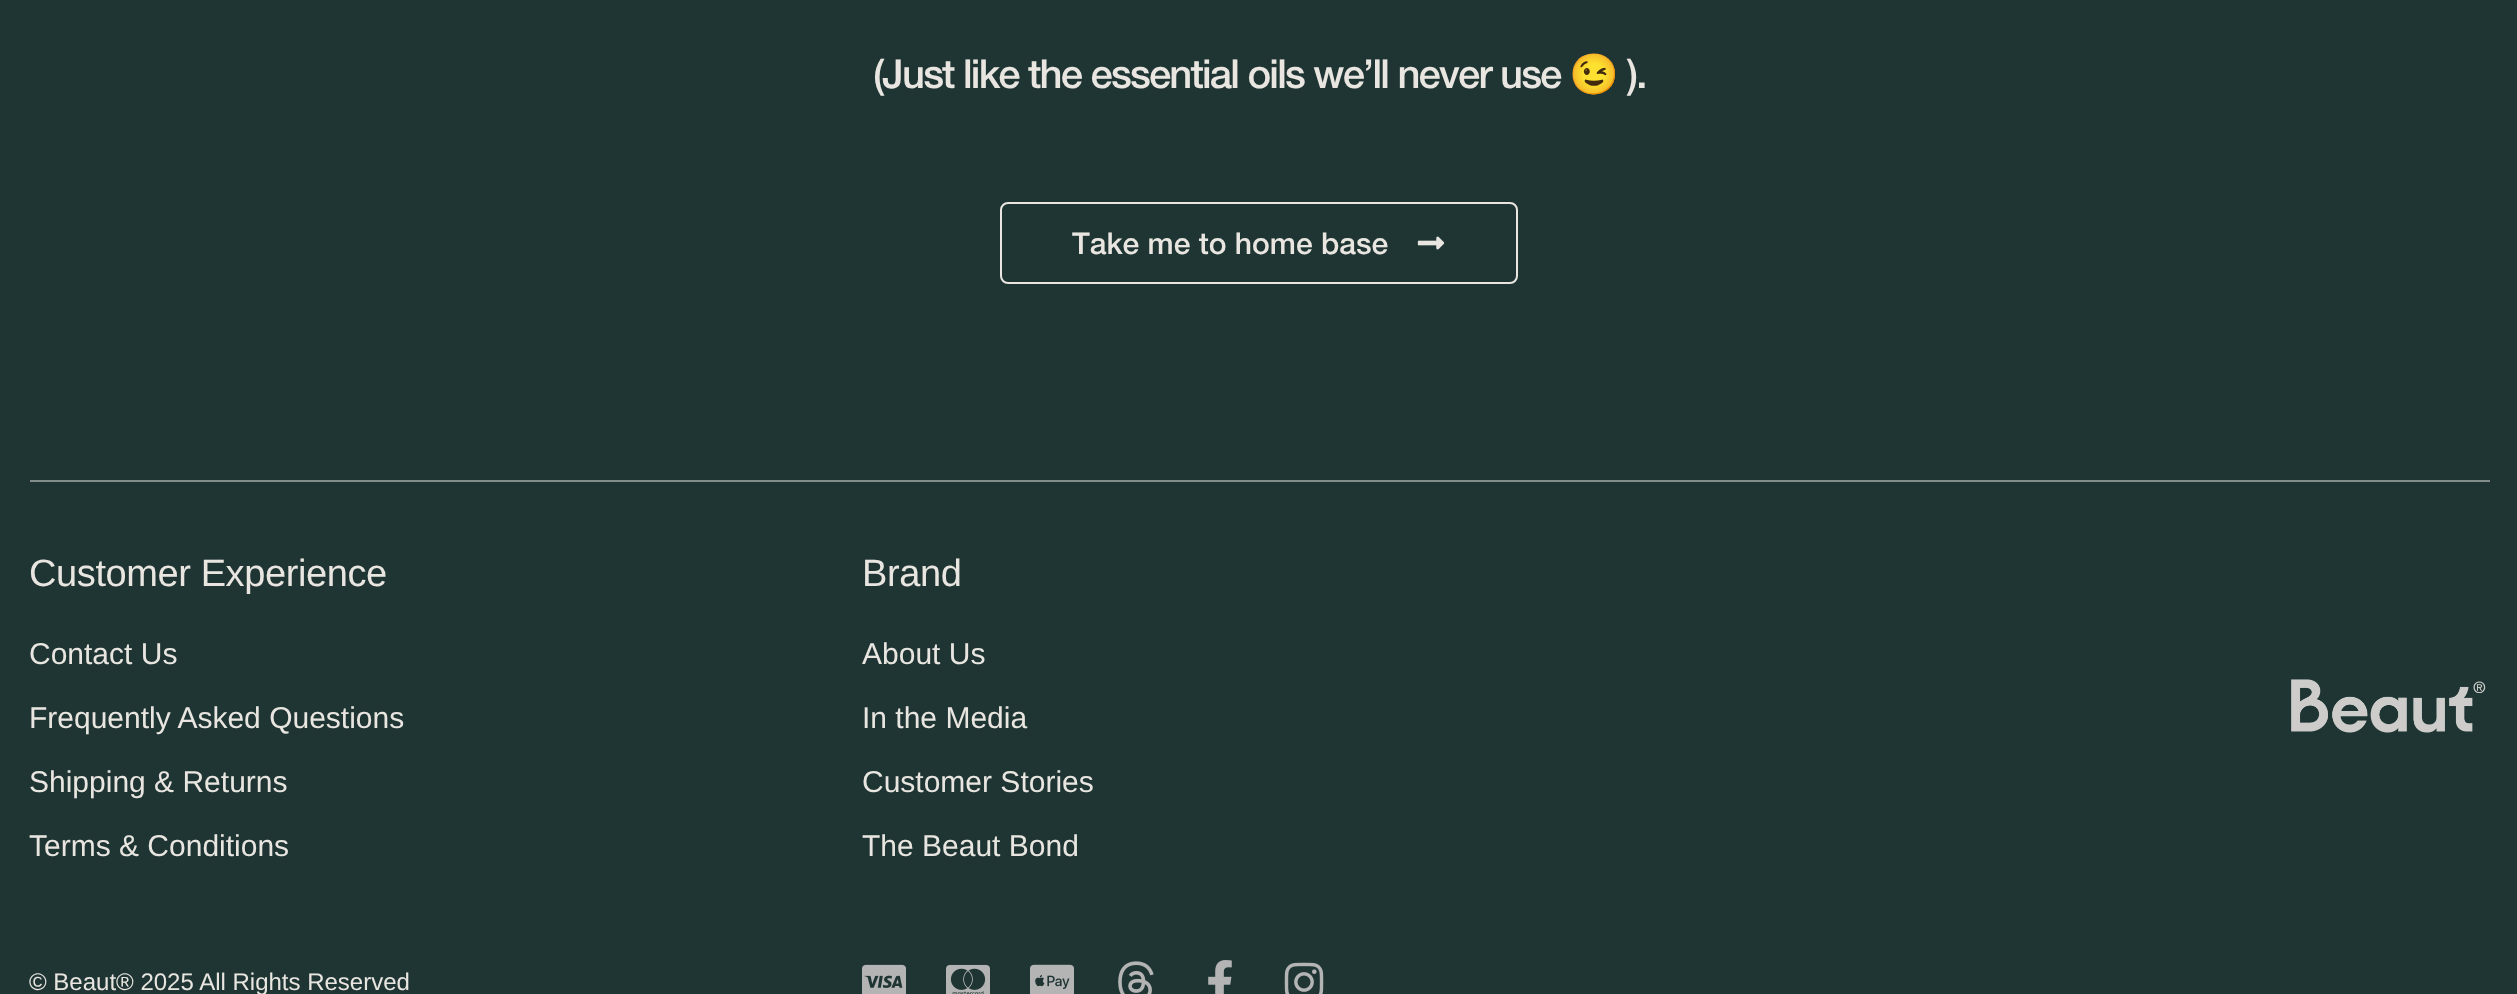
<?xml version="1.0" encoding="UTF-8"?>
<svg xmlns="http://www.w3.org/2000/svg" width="2517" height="994">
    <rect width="100%" height="100%" fill="#1F3533"/>
    <text x="873" y="88" font-family="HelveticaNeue" font-size="40" font-weight="500" letter-spacing="-1.8" fill="#E9E6E1">(Just like the essential oils we’ll never use</text>
    <text x="1569" y="88" font-family="Noto Color Emoji" font-size="40" letter-spacing="-1.8" fill="#E9E6E1">😉</text>
    <text x="1627" y="88" font-family="HelveticaNeue" font-size="40" font-weight="500" letter-spacing="-1.8" fill="#E9E6E1">).</text>
    <rect x="1001" y="203" width="516" height="80" rx="7" fill="none" stroke="#E9E6E1" stroke-width="2"/>
    <text x="1072" y="254" font-family="HelveticaNeue" font-size="30" font-weight="500" fill="#E9E6E1">Take me to home base</text>
    <image x="1417" y="236" width="28" height="14" href="img_01.png"/>
    <rect x="30" y="480" width="2460" height="2" fill="#828C88"/>
    <text x="29" y="586" font-family="Liberation Sans" font-size="38" letter-spacing="-0.4" fill="#E9E6E1">Customer Experience</text>
    <text x="29" y="664" font-family="Liberation Sans" font-size="30" fill="#E9E6E1">Contact Us</text>
    <text x="29" y="728" font-family="Liberation Sans" font-size="30" fill="#E9E6E1">Frequently Asked Questions</text>
    <text x="29" y="792" font-family="Liberation Sans" font-size="30" fill="#E9E6E1">Shipping &amp; Returns</text>
    <text x="29" y="856" font-family="Liberation Sans" font-size="30" fill="#E9E6E1">Terms &amp; Conditions</text>
    <text x="862" y="586" font-family="Liberation Sans" font-size="38" letter-spacing="-0.4" fill="#E9E6E1">Brand</text>
    <text x="862" y="664" font-family="Liberation Sans" font-size="30" fill="#E9E6E1">About Us</text>
    <text x="862" y="728" font-family="Liberation Sans" font-size="30" fill="#E9E6E1">In the Media</text>
    <text x="862" y="792" font-family="Liberation Sans" font-size="30" fill="#E9E6E1">Customer Stories</text>
    <text x="862" y="856" font-family="Liberation Sans" font-size="30" fill="#E9E6E1">The Beaut Bond</text>
    <image x="2291" y="679" width="195" height="54" href="img_02.png"/>
    <text x="29" y="990" font-family="Liberation Sans" font-size="24" fill="#E9E6E1">© Beaut® 2025 All Rights Reserved</text>
    <image x="862" y="964" width="44" height="30" href="img_03.png"/>
    <image x="946" y="964" width="44" height="30" href="img_04.png"/>
    <image x="1030" y="964" width="44" height="30" href="img_05.png"/>
    <image x="1118" y="961" width="36" height="33" href="img_06.png"/>
    <image x="1208" y="960" width="24" height="34" href="img_07.png"/>
    <image x="1284" y="962" width="40" height="32" href="img_08.png"/>
</svg>
